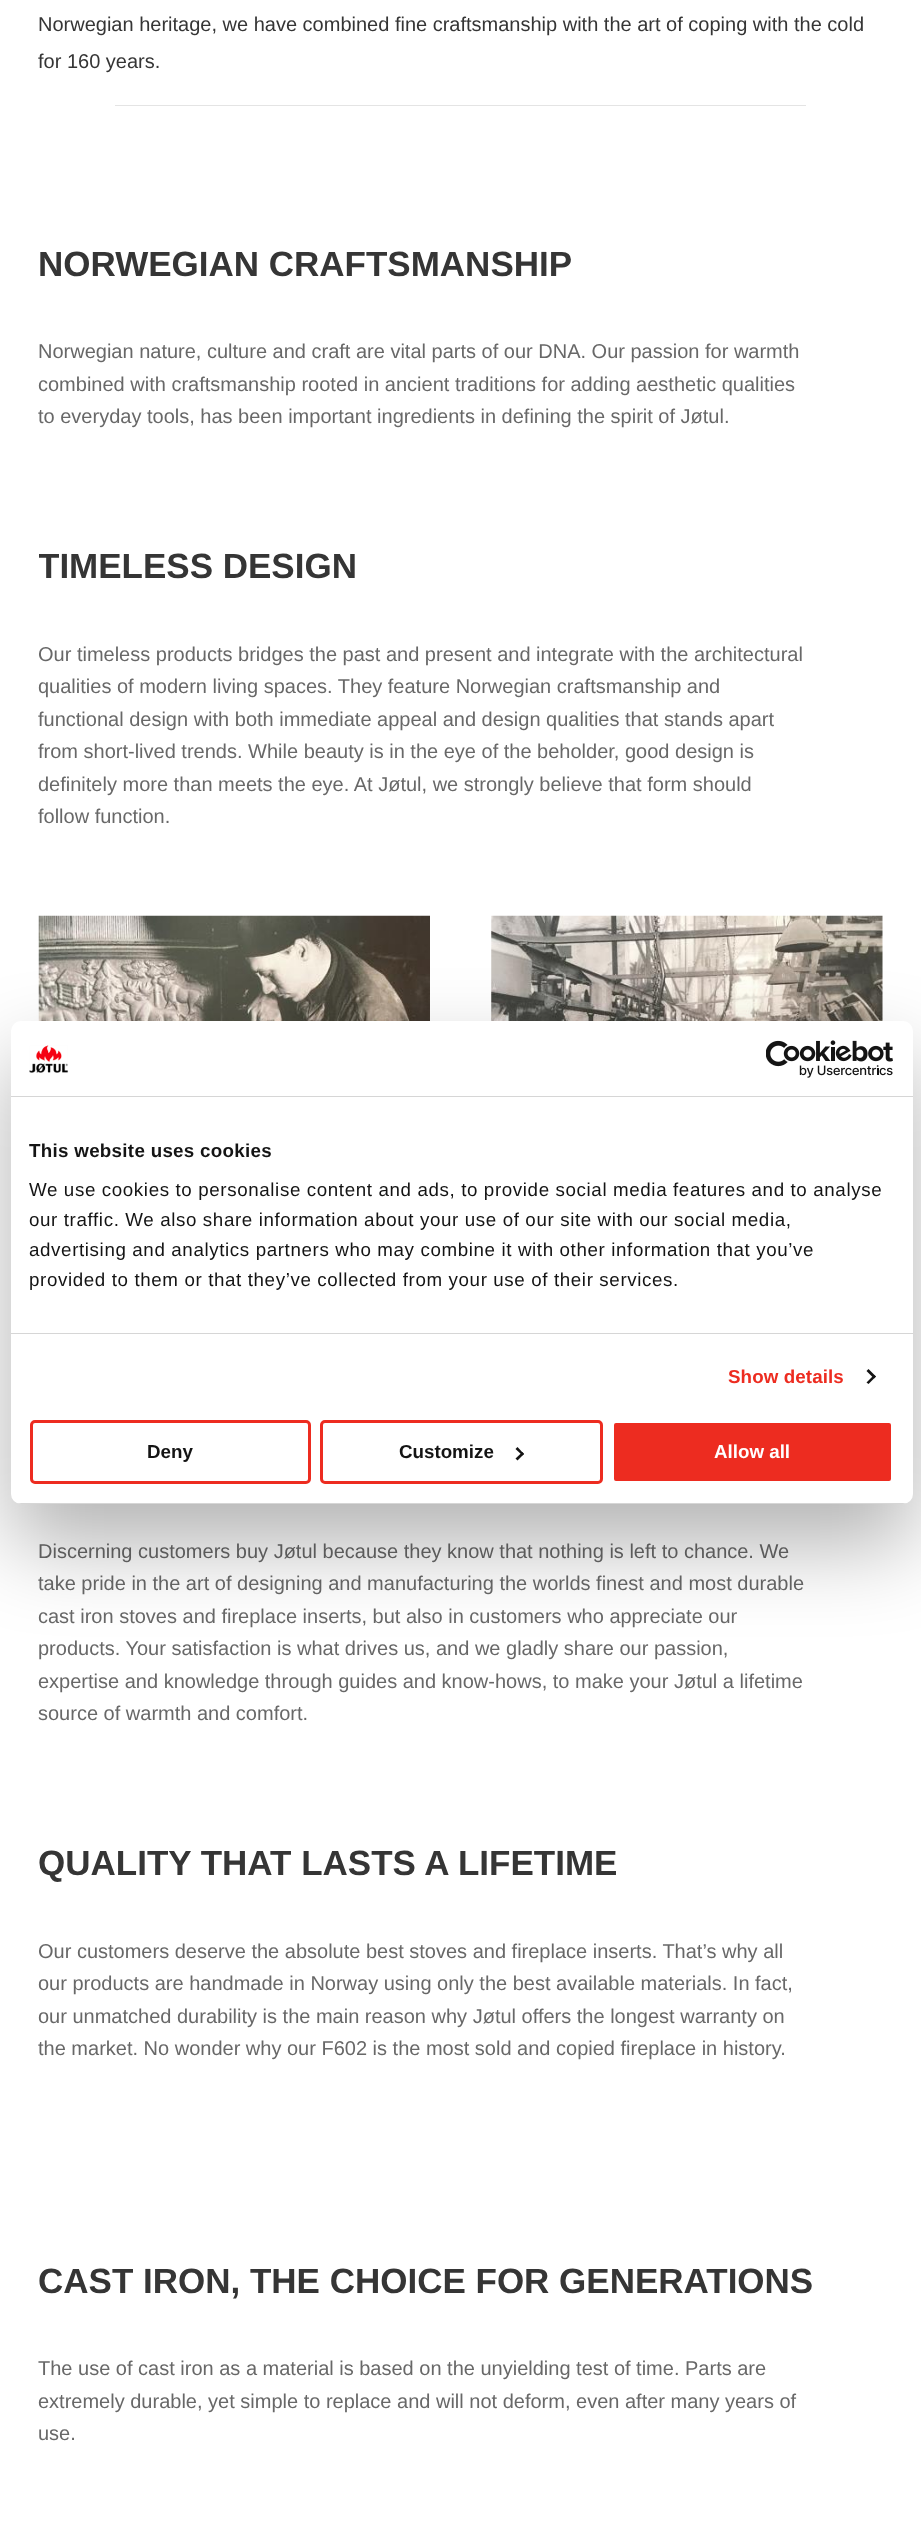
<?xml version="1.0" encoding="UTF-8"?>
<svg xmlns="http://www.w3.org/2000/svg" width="921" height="2525">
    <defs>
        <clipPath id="clip1"><rect x="39" y="544" width="844" height="47"/></clipPath>
        <filter id="blur1" x="-50%" y="-200%" width="200%" height="500%"><feGaussianBlur stdDeviation="42.5"/></filter>
        <clipPath id="clip2"><rect x="11" y="1021" width="902" height="483" rx="10"/></clipPath>
    </defs>
    <rect width="100%" height="100%" fill="#FFFFFF"/>
    <text font-family="Liberation Sans" font-size="20" fill="#353535">
        <tspan x="38" y="31">Norwegian heritage, we have combined fine craftsmanship with the art of coping with the cold</tspan>
        <tspan x="38" y="68">for 160 years.</tspan>
    </text>
    <rect x="115" y="105" width="691" height="1" fill="#E4E4E4"/>
    <text x="38" y="276" font-family="Liberation Sans" font-size="35" font-weight="700" fill="#353535">NORWEGIAN CRAFTSMANSHIP</text>
    <text font-family="Liberation Sans" font-size="20" fill="#686868">
        <tspan x="38" y="358">Norwegian nature, culture and craft are vital parts of our DNA. Our passion for warmth</tspan>
        <tspan x="38" y="391">combined with craftsmanship rooted in ancient traditions for adding aesthetic qualities</tspan>
        <tspan x="38" y="423">to everyday tools, has been important ingredients in defining the spirit of Jøtul.</tspan>
    </text>
    <g clip-path="url(#clip1)">
        <text x="38" y="578" font-family="Liberation Sans" font-size="35" font-weight="700" fill="#353535">TIMELESS DESIGN</text>
    </g>
    <text font-family="Liberation Sans" font-size="20" fill="#686868">
        <tspan x="38" y="661">Our timeless products bridges the past and present and integrate with the architectural</tspan>
        <tspan x="38" y="693">qualities of modern living spaces. They feature Norwegian craftsmanship and</tspan>
        <tspan x="38" y="726">functional design with both immediate appeal and design qualities that stands apart</tspan>
        <tspan x="38" y="758">from short-lived trends. While beauty is in the eye of the beholder, good design is</tspan>
        <tspan x="38" y="791">definitely more than meets the eye. At Jøtul, we strongly believe that form should</tspan>
        <tspan x="38" y="823">follow function.</tspan>
    </text>
    <image x="38" y="915" width="392" height="106" href="img_01.png"/>
    <image x="491" y="915" width="392" height="106" href="img_02.png"/>
    <text font-family="Liberation Sans" font-size="20" fill="#686868">
        <tspan x="38" y="1558">Discerning customers buy Jøtul because they know that nothing is left to chance. We</tspan>
        <tspan x="38" y="1590">take pride in the art of designing and manufacturing the worlds finest and most durable</tspan>
        <tspan x="38" y="1623">cast iron stoves and fireplace inserts, but also in customers who appreciate our</tspan>
        <tspan x="38" y="1655">products. Your satisfaction is what drives us, and we gladly share our passion,</tspan>
        <tspan x="38" y="1688">expertise and knowledge through guides and know-hows, to make your Jøtul a lifetime</tspan>
        <tspan x="38" y="1720">source of warmth and comfort.</tspan>
    </text>
    <text x="38" y="1875" font-family="Liberation Sans" font-size="35" font-weight="700" fill="#353535">QUALITY THAT LASTS A LIFETIME</text>
    <text font-family="Liberation Sans" font-size="20" fill="#686868">
        <tspan x="38" y="1958">Our customers deserve the absolute best stoves and fireplace inserts. That’s why all</tspan>
        <tspan x="38" y="1990">our products are handmade in Norway using only the best available materials. In fact,</tspan>
        <tspan x="38" y="2023">our unmatched durability is the main reason why Jøtul offers the longest warranty on</tspan>
        <tspan x="38" y="2055">the market. No wonder why our F602 is the most sold and copied fireplace in history.</tspan>
    </text>
    <text x="38" y="2293" font-family="Liberation Sans" font-size="35" font-weight="700" fill="#353535">CAST IRON, THE CHOICE FOR GENERATIONS</text>
    <text font-family="Liberation Sans" font-size="20" fill="#686868">
        <tspan x="38" y="2375">The use of cast iron as a material is based on the unyielding test of time. Parts are</tspan>
        <tspan x="38" y="2408">extremely durable, yet simple to replace and will not deform, even after many years of</tspan>
        <tspan x="38" y="2440">use.</tspan>
    </text>
    <rect x="11" y="1061" width="902" height="483" rx="10" fill="#000000" fill-opacity="0.3" filter="url(#blur1)"/>
    <rect x="11" y="1021" width="902" height="483" rx="10" fill="#FFFFFF"/>
    <rect x="11" y="1096" width="902" height="1" fill="#D6D6D6"/>
    <image x="29" y="1045" width="40" height="28" href="img_03.png"/>
    <image x="766" y="1040" width="127" height="38" href="img_04.png"/>
    <rect x="11" y="1333" width="902" height="1" fill="#D6D6D6"/>
    <text x="29" y="1157" font-family="Liberation Sans" font-size="18.75" font-weight="700" letter-spacing="0.3" fill="#141414">This website uses cookies</text>
    <text font-family="Liberation Sans" font-size="18.75" letter-spacing="0.62" fill="#141414">
        <tspan x="29" y="1196">We use cookies to personalise content and ads, to provide social media features and to analyse</tspan>
        <tspan x="29" y="1226">our traffic. We also share information about your use of our site with our social media,</tspan>
        <tspan x="29" y="1256">advertising and analytics partners who may combine it with other information that you’ve</tspan>
        <tspan x="29" y="1286">provided to them or that they’ve collected from your use of their services.</tspan>
    </text>
    <text x="728" y="1383" font-family="Liberation Sans" font-size="18.75" font-weight="700" letter-spacing="0.1" fill="#ED2C20">Show details</text>
    <path d="M 868.5 1369 L 876 1376.5 L 874 1378.5 L 866.5 1371 Z" fill="#141414"/>
    <path d="M 874 1375 L 876 1376.5 L 868.5 1384 L 866.5 1382.5 Z" fill="#141414"/>
    <g clip-path="url(#clip2)">
        <rect x="11" y="1503" width="902" height="1" fill="#D6D6D6"/>
    </g>
    <rect x="31.5" y="1421.5" width="278" height="61" rx="3.5" fill="none" stroke="#ED2C20" stroke-width="3"/>
    <text x="147" y="1458" font-family="Liberation Sans" font-size="18.75" font-weight="700" fill="#141414">Deny</text>
    <rect x="321.5" y="1421.5" width="280" height="61" rx="3.5" fill="none" stroke="#ED2C20" stroke-width="3"/>
    <text x="399" y="1458" font-family="Liberation Sans" font-size="18.75" font-weight="700" fill="#141414">Customize</text>
    <path d="M 517.5 1447 L 524 1454 L 522.5 1455.5 L 515.5 1449 Z" fill="#141414"/>
    <path d="M 522.5 1452 L 524 1454 L 517.5 1460.5 L 515.5 1458.5 Z" fill="#141414"/>
    <rect x="612.5" y="1421.5" width="280" height="61" rx="3.5" fill="#ED2C20" stroke="#FFFFFF" stroke-width="3"/>
    <text x="714" y="1458" font-family="Liberation Sans" font-size="18.75" font-weight="700" fill="#FFFFFF">Allow all</text>
</svg>
